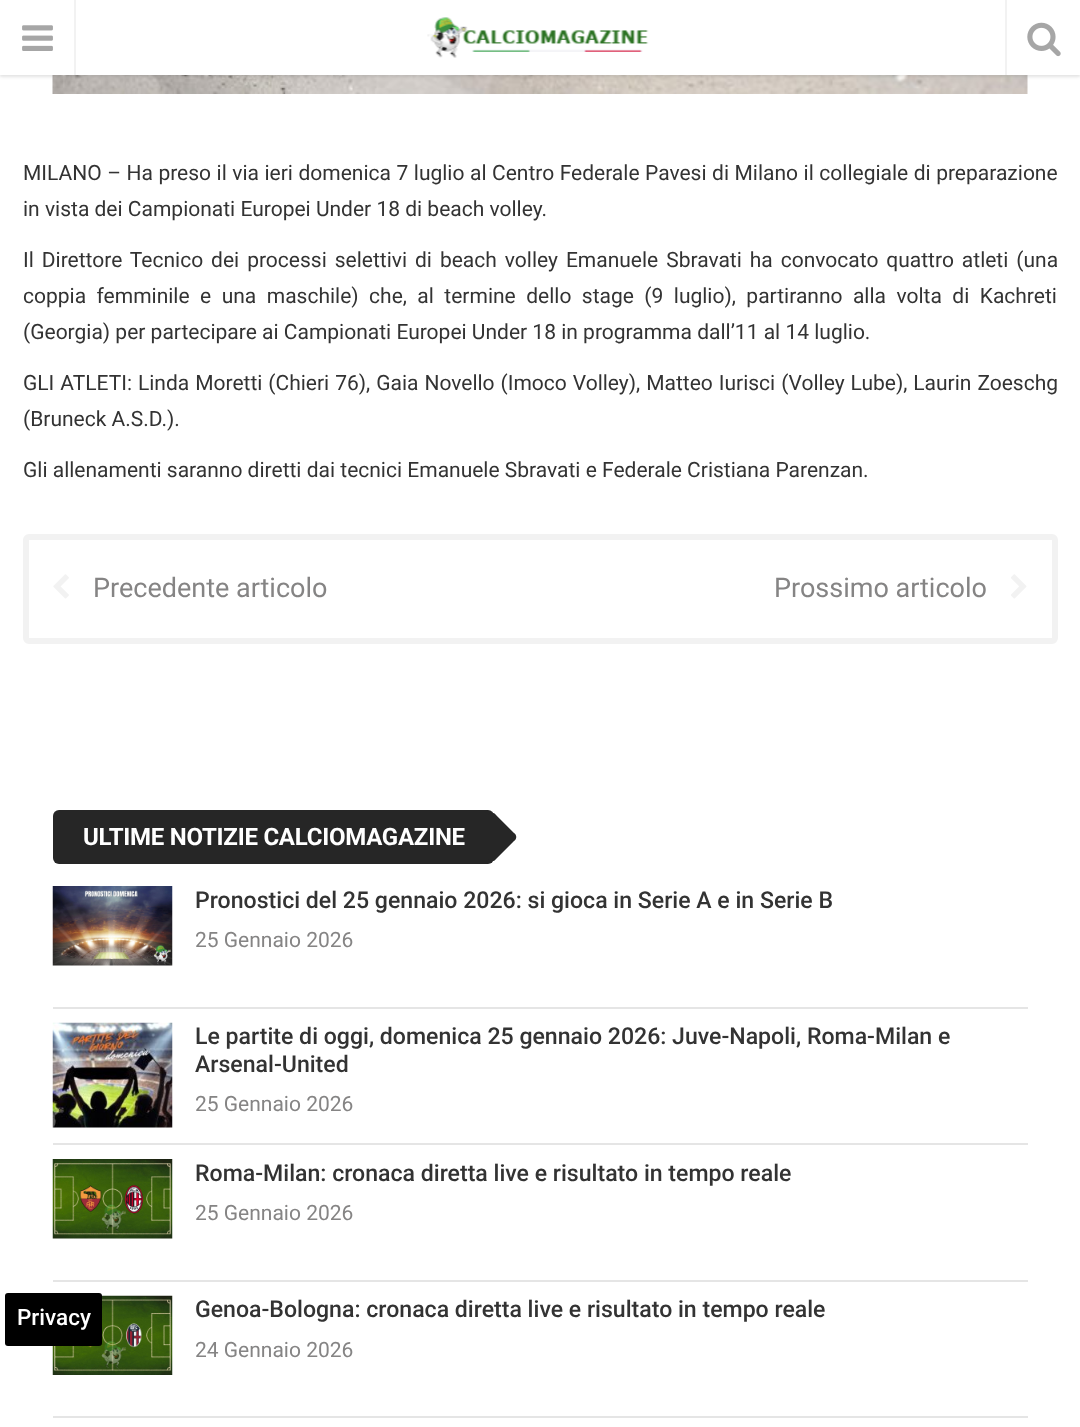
<?xml version="1.0" encoding="UTF-8"?>
<svg xmlns="http://www.w3.org/2000/svg" width="1080" height="1427">
    <defs>
        <filter id="blur1" x="-50%" y="-200%" width="200%" height="500%"><feGaussianBlur stdDeviation="1.5"/></filter>
    </defs>
    <rect width="100%" height="100%" fill="#FFFFFF"/>
    <image x="52" y="75" width="976" height="19" href="img_04.png"/>
    <rect x="0" y="2" width="1080" height="75" fill="#6C6C6C" fill-opacity="0.2" filter="url(#blur1)"/>
    <rect x="0" y="0" width="1080" height="75" fill="#FFFFFF"/>
    <rect x="74" y="0" width="2" height="75" fill="#F2F2F2"/>
    <image x="22" y="25" width="31" height="26" href="img_01.png"/>
    <image x="427" y="17" width="222" height="41" href="img_02.png"/>
    <rect x="1005" y="0" width="2" height="75" fill="#F2F2F2"/>
    <image x="1027" y="22" width="34" height="35" href="img_03.png"/>
    <text font-family="Roboto" font-size="21" fill="#333333">
        <tspan x="23" y="180" word-spacing="0.3">MILANO – Ha preso il via ieri domenica 7 luglio al Centro Federale Pavesi di Milano il collegiale di preparazione</tspan>
        <tspan x="23" y="216">in vista dei Campionati Europei Under 18 di beach volley.</tspan>
    </text>
    <text font-family="Roboto" font-size="21" fill="#333333">
        <tspan x="23" y="267" word-spacing="2.75">Il Direttore Tecnico dei processi selettivi di beach volley Emanuele Sbravati ha convocato quattro atleti (una</tspan>
        <tspan x="23" y="303" word-spacing="5.25">coppia femminile e una maschile) che, al termine dello stage (9 luglio), partiranno alla volta di Kachreti</tspan>
        <tspan x="23" y="339">(Georgia) per partecipare ai Campionati Europei Under 18 in programma dall’11 al 14 luglio.</tspan>
    </text>
    <text font-family="Roboto" font-size="21" fill="#333333">
        <tspan x="23" y="390" word-spacing="0.75">GLI ATLETI: Linda Moretti (Chieri 76), Gaia Novello (Imoco Volley), Matteo Iurisci (Volley Lube), Laurin Zoeschg</tspan>
        <tspan x="23" y="426">(Bruneck A.S.D.).</tspan>
    </text>
    <text x="23" y="477" font-family="Roboto" font-size="21" fill="#333333">Gli allenamenti saranno diretti dai tecnici Emanuele Sbravati e Federale Cristiana Parenzan.</text>
    <rect x="26" y="537" width="1029" height="104" rx="3" fill="none" stroke="#F2F2F2" stroke-width="6"/>
    <image x="53" y="574" width="16" height="25" href="img_05.png"/>
    <text x="93" y="597" font-family="Roboto" font-size="27" fill="#858484">Precedente articolo</text>
    <text x="774" y="597" font-family="Roboto" font-size="27" fill="#858484">Prossimo articolo</text>
    <image x="1011" y="574" width="16" height="25" href="img_06.png"/>
    <rect x="53" y="810" width="441" height="54" rx="6" fill="#262626"/>
    <text x="83" y="845" font-family="Roboto" font-size="24" font-weight="700" letter-spacing="-0.25" fill="#FFFFFF">ULTIME NOTIZIE CALCIOMAGAZINE</text>
    <path d="M 470 833 L 488 815 C 490 812 494 812 496 815 L 514 833 C 517 835 517 839 514 841 L 496 859 C 494 862 490 862 488 859 L 470 841 C 467 839 467 835 470 833 Z" fill="#262626"/>
    <rect x="53" y="1007" width="975" height="2" fill="#E5E5E5"/>
    <image x="52" y="886" width="121" height="80" href="img_07.png"/>
    <text x="195" y="908" font-family="Roboto" font-size="23.1" font-weight="500" fill="#333333">Pronostici del 25 gennaio 2026: si gioca in Serie A e in Serie B</text>
    <text x="195" y="947" font-family="Roboto" font-size="21" fill="#858484">25 Gennaio 2026</text>
    <rect x="53" y="1143" width="975" height="2" fill="#E5E5E5"/>
    <image x="52" y="1022" width="121" height="106" href="img_08.png"/>
    <text font-family="Roboto" font-size="23.1" font-weight="500" fill="#333333">
        <tspan x="195" y="1044">Le partite di oggi, domenica 25 gennaio 2026: Juve-Napoli, Roma-Milan e</tspan>
        <tspan x="195" y="1072">Arsenal-United</tspan>
    </text>
    <text x="195" y="1111" font-family="Roboto" font-size="21" fill="#858484">25 Gennaio 2026</text>
    <rect x="53" y="1280" width="975" height="2" fill="#E5E5E5"/>
    <image x="52" y="1159" width="121" height="80" href="img_09.png"/>
    <text x="195" y="1181" font-family="Roboto" font-size="23.1" font-weight="500" fill="#333333">Roma-Milan: cronaca diretta live e risultato in tempo reale</text>
    <text x="195" y="1220" font-family="Roboto" font-size="21" fill="#858484">25 Gennaio 2026</text>
    <rect x="53" y="1416" width="975" height="2" fill="#E5E5E5"/>
    <image x="52" y="1295" width="121" height="80" href="img_10.png"/>
    <text x="195" y="1317" font-family="Roboto" font-size="23.1" font-weight="500" fill="#333333">Genoa-Bologna: cronaca diretta live e risultato in tempo reale</text>
    <text x="195" y="1357" font-family="Roboto" font-size="21" fill="#858484">24 Gennaio 2026</text>
    <rect x="5" y="1293" width="97" height="53" rx="3" fill="#000000"/>
    <text x="17" y="1325" font-family="Roboto" font-size="22.5" font-weight="500" fill="#FFFFFF">Privacy</text>
</svg>
